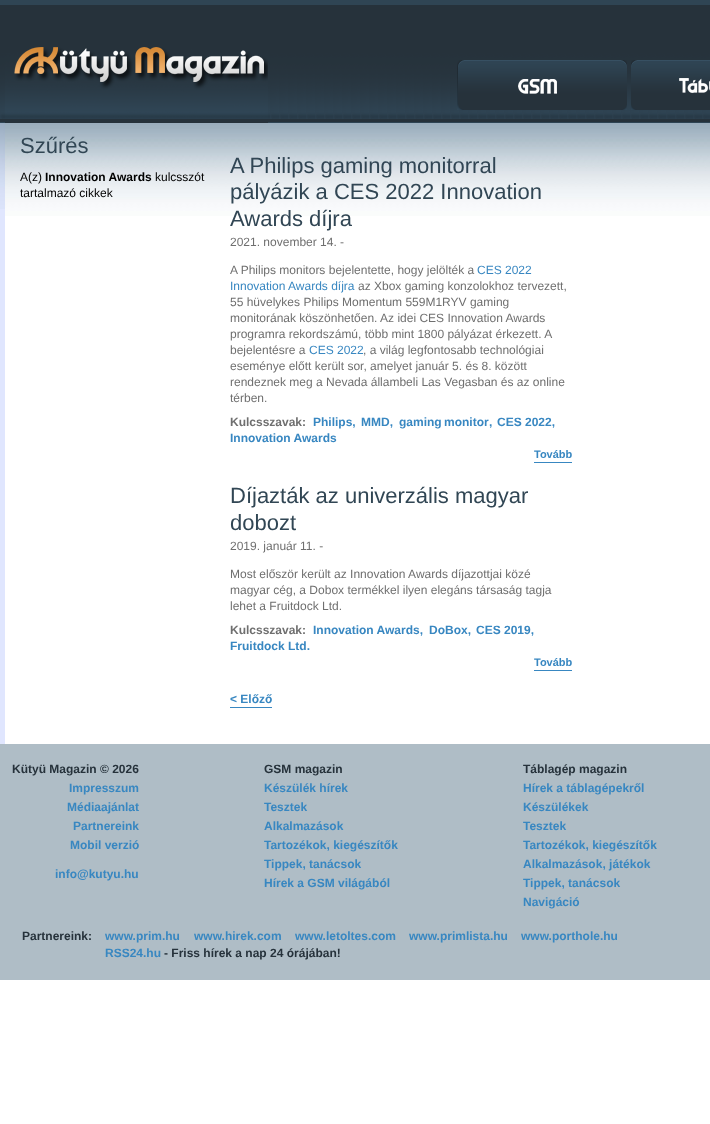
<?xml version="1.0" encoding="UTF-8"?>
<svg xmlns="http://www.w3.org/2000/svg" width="710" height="1124">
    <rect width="100%" height="100%" fill="#FFFFFF"/>
    <image x="0" y="0" width="710" height="123" href="img_01.png"/>
    <image x="5" y="47" width="263" height="76" href="img_02.png"/>
    <image x="457" y="60" width="170" height="50" href="img_03.png"/>
    <image x="631" y="60" width="79" height="50" href="img_04.png"/>
    <rect x="0" y="209" width="5" height="535" fill="#E0E6FE"/>
    <image x="0" y="123" width="5" height="86" href="img_05.png"/>
    <image x="5" y="123" width="705" height="93" href="img_06.png"/>
    <text x="20" y="153" font-family="Liberation Sans" font-size="22" fill="#314654">Szűrés</text>
    <text x="20" y="181" font-family="Liberation Sans" font-size="12" fill="#000000">A(z)</text>
    <text x="45" y="181" font-family="Liberation Sans" font-size="12" font-weight="700" fill="#000000">Innovation Awards</text>
    <text x="155" y="181" font-family="Liberation Sans" font-size="12" fill="#000000">kulcsszót</text>
    <text x="20" y="197" font-family="Liberation Sans" font-size="12" fill="#000000">tartalmazó cikkek</text>
    <text font-family="Liberation Sans" font-size="22" fill="#314654">
        <tspan x="230" y="173">A Philips gaming monitorral</tspan>
        <tspan x="230" y="199">pályázik a CES 2022 Innovation</tspan>
        <tspan x="230" y="226">Awards díjra</tspan>
    </text>
    <text x="230" y="246" font-family="Liberation Sans" font-size="12" fill="#6F6F6F">2021. november 14. -</text>
    <text x="230" y="274" font-family="Liberation Sans" font-size="12" fill="#6F6F6F">A Philips monitors bejelentette, hogy jelölték a</text>
    <text x="477" y="274" font-family="Liberation Sans" font-size="12" fill="#3887C1">CES 2022</text>
    <text x="230" y="290" font-family="Liberation Sans" font-size="12" fill="#3887C1">Innovation Awards díjra</text>
    <text x="358" y="290" font-family="Liberation Sans" font-size="12" fill="#6F6F6F">az Xbox gaming konzolokhoz tervezett,</text>
    <text font-family="Liberation Sans" font-size="12" fill="#6F6F6F">
        <tspan x="230" y="306">55 hüvelykes Philips Momentum 559M1RYV gaming</tspan>
        <tspan x="230" y="322">monitorának köszönhetően. Az idei CES Innovation Awards</tspan>
        <tspan x="230" y="338">programra rekordszámú, több mint 1800 pályázat érkezett. A</tspan>
        <tspan x="230" y="354">bejelentésre a</tspan>
    </text>
    <text x="309" y="354" font-family="Liberation Sans" font-size="12" fill="#3887C1">CES 2022</text>
    <text x="363" y="354" font-family="Liberation Sans" font-size="12" fill="#6F6F6F">, a világ legfontosabb technológiai</text>
    <text font-family="Liberation Sans" font-size="12" fill="#6F6F6F">
        <tspan x="230" y="370">eseménye előtt került sor, amelyet január 5. és 8. között</tspan>
        <tspan x="230" y="386">rendeznek meg a Nevada állambeli Las Vegasban és az online</tspan>
        <tspan x="230" y="402">térben.</tspan>
    </text>
    <text x="230" y="426" font-family="Liberation Sans" font-size="12" font-weight="700" fill="#6F6F6F">Kulcsszavak:</text>
    <text x="313" y="426" font-family="Liberation Sans" font-size="12" font-weight="700" fill="#3887C1">Philips,</text>
    <text x="361" y="426" font-family="Liberation Sans" font-size="12" font-weight="700" fill="#3887C1">MMD,</text>
    <text x="399" y="426" word-spacing="-1" font-family="Liberation Sans" font-size="12" font-weight="700" fill="#3887C1">gaming monitor</text>
    <text x="489" y="426" font-family="Liberation Sans" font-size="12" font-weight="700" fill="#3887C1">,</text>
    <text x="497" y="426" font-family="Liberation Sans" font-size="12" font-weight="700" fill="#3887C1">CES 2022,</text>
    <text x="230" y="442" font-family="Liberation Sans" font-size="12" font-weight="700" fill="#3887C1">Innovation Awards</text>
    <rect x="534" y="462" width="38" height="1" fill="#3887C1"/>
    <text x="534" y="458" font-family="Liberation Sans" font-size="11" font-weight="700" fill="#3887C1">Tovább</text>
    <text font-family="Liberation Sans" font-size="22" fill="#314654">
        <tspan x="230" y="503">Díjazták az univerzális magyar</tspan>
        <tspan x="230" y="530">dobozt</tspan>
    </text>
    <text x="230" y="550" font-family="Liberation Sans" font-size="12" fill="#6F6F6F">2019. január 11. -</text>
    <text font-family="Liberation Sans" font-size="12" fill="#6F6F6F">
        <tspan x="230" y="578">Most először került az Innovation Awards díjazottjai közé</tspan>
        <tspan x="230" y="594">magyar cég, a Dobox termékkel ilyen elegáns társaság tagja</tspan>
        <tspan x="230" y="610">lehet a Fruitdock Ltd.</tspan>
    </text>
    <text x="230" y="634" font-family="Liberation Sans" font-size="12" font-weight="700" fill="#6F6F6F">Kulcsszavak:</text>
    <text x="313" y="634" font-family="Liberation Sans" font-size="12" font-weight="700" fill="#3887C1">Innovation Awards,</text>
    <text x="429" y="634" font-family="Liberation Sans" font-size="12" font-weight="700" fill="#3887C1">DoBox,</text>
    <text x="476" y="634" font-family="Liberation Sans" font-size="12" font-weight="700" fill="#3887C1">CES 2019,</text>
    <text x="230" y="650" font-family="Liberation Sans" font-size="12" font-weight="700" fill="#3887C1">Fruitdock Ltd.</text>
    <rect x="534" y="670" width="38" height="1" fill="#3887C1"/>
    <text x="534" y="666" font-family="Liberation Sans" font-size="11" font-weight="700" fill="#3887C1">Tovább</text>
    <rect x="230" y="707" width="42" height="1" fill="#3887C1"/>
    <text x="230" y="703" font-family="Liberation Sans" font-size="12" font-weight="700" fill="#3887C1">&lt; Előző</text>
    <rect x="0" y="744" width="710" height="236" fill="#AFBDC6"/>
    <text x="12" y="773" font-family="Liberation Sans" font-size="12" font-weight="700" fill="#26323B">Kütyü Magazin © 2026</text>
    <text x="69" y="792" font-family="Liberation Sans" font-size="12" font-weight="700" fill="#3887C1">Impresszum</text>
    <text x="67" y="811" font-family="Liberation Sans" font-size="12" font-weight="700" fill="#3887C1">Médiaajánlat</text>
    <text x="73" y="830" font-family="Liberation Sans" font-size="12" font-weight="700" fill="#3887C1">Partnereink</text>
    <text x="70" y="849" font-family="Liberation Sans" font-size="12" font-weight="700" fill="#3887C1">Mobil verzió</text>
    <text x="55" y="878" font-family="Liberation Sans" font-size="12" font-weight="700" fill="#3887C1">info@kutyu.hu</text>
    <text x="264" y="773" font-family="Liberation Sans" font-size="12" font-weight="700" fill="#26323B">GSM magazin</text>
    <text font-family="Liberation Sans" font-size="12" font-weight="700" fill="#3887C1">
        <tspan x="264" y="792">Készülék hírek</tspan>
        <tspan x="264" y="811">Tesztek</tspan>
        <tspan x="264" y="830">Alkalmazások</tspan>
        <tspan x="264" y="849">Tartozékok, kiegészítők</tspan>
        <tspan x="264" y="868">Tippek, tanácsok</tspan>
        <tspan x="264" y="887">Hírek a GSM világából</tspan>
    </text>
    <text x="523" y="773" font-family="Liberation Sans" font-size="12" font-weight="700" fill="#26323B">Táblagép magazin</text>
    <text font-family="Liberation Sans" font-size="12" font-weight="700" fill="#3887C1">
        <tspan x="523" y="792">Hírek a táblagépekről</tspan>
        <tspan x="523" y="811">Készülékek</tspan>
        <tspan x="523" y="830">Tesztek</tspan>
        <tspan x="523" y="849">Tartozékok, kiegészítők</tspan>
        <tspan x="523" y="868">Alkalmazások, játékok</tspan>
        <tspan x="523" y="887">Tippek, tanácsok</tspan>
        <tspan x="523" y="906">Navigáció</tspan>
    </text>
    <text x="22" y="940" font-family="Liberation Sans" font-size="12" font-weight="700" fill="#26323B">Partnereink:</text>
    <text x="105" y="940" font-family="Liberation Sans" font-size="12" font-weight="700" fill="#3887C1">www.prim.hu</text>
    <text x="194" y="940" font-family="Liberation Sans" font-size="12" font-weight="700" fill="#3887C1">www.hirek.com</text>
    <text x="295" y="940" font-family="Liberation Sans" font-size="12" font-weight="700" fill="#3887C1">www.letoltes.com</text>
    <text x="409" y="940" font-family="Liberation Sans" font-size="12" font-weight="700" fill="#3887C1">www.primlista.hu</text>
    <text x="521" y="940" font-family="Liberation Sans" font-size="12" font-weight="700" fill="#3887C1">www.porthole.hu</text>
    <text x="105" y="957" font-family="Liberation Sans" font-size="12" font-weight="700" fill="#3887C1">RSS24.hu</text>
    <text x="164" y="957" font-family="Liberation Sans" font-size="12" font-weight="700" fill="#26323B">- Friss hírek a nap 24 órájában!</text>
</svg>
